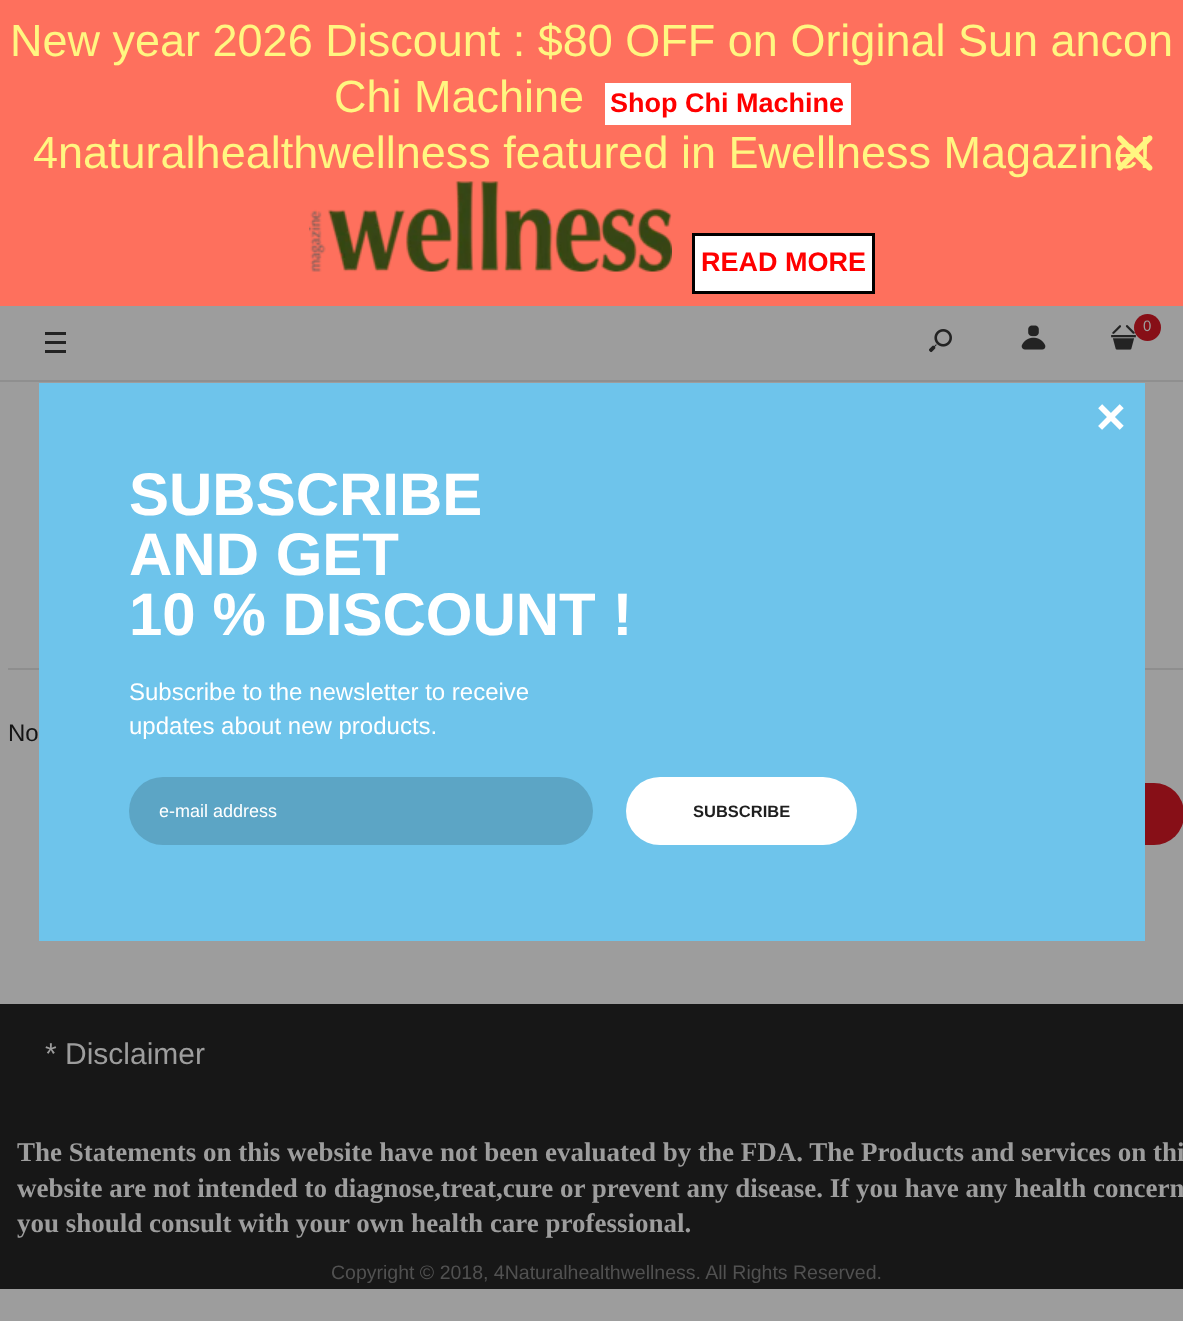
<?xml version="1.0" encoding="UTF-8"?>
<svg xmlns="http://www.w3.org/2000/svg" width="1183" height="1321">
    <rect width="100%" height="100%" fill="#9D9D9D"/>
    <rect x="0" y="0" width="1183" height="306" fill="#FE705D"/>
    <text x="10" y="56" font-family="Liberation Sans" font-size="45" fill="#FFF681">New year 2026 Discount : $80 OFF on Original Sun ancon</text>
    <text x="334" y="112" font-family="Liberation Sans" font-size="45" fill="#FFF681">Chi Machine</text>
    <rect x="605" y="83" width="246" height="42" fill="#FFFFFF"/>
    <text x="610" y="112" font-family="Liberation Sans" font-size="27" font-weight="700" fill="#FF0000">Shop Chi Machine</text>
    <text x="33" y="168" font-family="Liberation Sans" font-size="45" fill="#FFF681">4naturalhealthwellness featured in Ewellness Magazine!</text>
    <image x="309" y="181" width="363" height="91" href="img_01.png"/>
    <rect x="693.5" y="234.5" width="180" height="58" fill="#FFFFFF" stroke="#000000" stroke-width="3"/>
    <text x="701" y="271" font-family="Liberation Sans" font-size="27" font-weight="700" fill="#FF0000">READ MORE</text>
    <image x="1117" y="135" width="36" height="36" href="img_02.png"/>
    <rect x="0" y="380" width="1183" height="2" fill="#8F8F8F"/>
    <rect x="45" y="341" width="21" height="3" fill="#232323"/>
    <rect x="45" y="332" width="21" height="3" fill="#232323"/>
    <rect x="45" y="350" width="21" height="3" fill="#232323"/>
    <image x="929" y="329" width="23" height="24" href="img_03.png"/>
    <image x="1021" y="325" width="25" height="25" href="img_04.png"/>
    <image x="1111" y="325" width="25" height="25" href="img_05.png"/>
    <circle cx="1147.5" cy="327.5" r="13.5" fill="#870F17"/>
    <text x="1143" y="331" font-family="Liberation Sans" font-size="15" fill="#9D9D9D">0</text>
    <rect x="8" y="668" width="1175" height="2" fill="#8E8E8E"/>
    <text x="8" y="741" font-family="Liberation Sans" font-size="24" fill="#141414">No</text>
    <rect x="984" y="783" width="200" height="62" rx="30" fill="#870F17"/>
    <rect x="0" y="1004" width="1183" height="285" fill="#171717"/>
    <text x="45" y="1064" font-family="Liberation Sans" font-size="30" fill="#9D9D9D">* Disclaimer</text>
    <text font-family="Liberation Serif" font-size="27" font-weight="700" fill="#9D9D9D">
        <tspan x="17" y="1161">The Statements on this website have not been evaluated by the FDA. The Products and services on thi</tspan>
        <tspan x="17" y="1197">website are not intended to diagnose,treat,cure or prevent any disease. If you have any health concern</tspan>
        <tspan x="17" y="1232">you should consult with your own health care professional.</tspan>
    </text>
    <text x="331" y="1279" font-family="Liberation Sans" font-size="19.5" fill="#515151">Copyright © 2018, 4Naturalhealthwellness. All Rights Reserved.</text>
    <rect x="39" y="383" width="1106" height="558" fill="#6EC4EB"/>
    <text x="1096" y="434" font-family="Liberation Sans" font-size="51" font-weight="700" fill="#FFFFFF">×</text>
    <text font-family="Liberation Sans" font-size="60" font-weight="700" fill="#FFFFFF">
        <tspan x="129" y="515">SUBSCRIBE</tspan>
        <tspan x="129" y="575">AND GET</tspan>
        <tspan x="129" y="635">10 % DISCOUNT !</tspan>
    </text>
    <text font-family="Liberation Sans" font-size="24" fill="#FFFFFF">
        <tspan x="129" y="700">Subscribe to the newsletter to receive</tspan>
        <tspan x="129" y="734">updates about new products.</tspan>
    </text>
    <rect x="129" y="777" width="464" height="68" rx="34" fill="#5CA5C5"/>
    <text x="159" y="817" font-family="Liberation Sans" font-size="18" fill="#FFFFFF">e-mail address</text>
    <rect x="626" y="777" width="231" height="68" rx="34" fill="#FFFFFF"/>
    <text x="693" y="817" font-family="Liberation Sans" font-size="16.5" font-weight="700" fill="#1F1F1F">SUBSCRIBE</text>
</svg>
